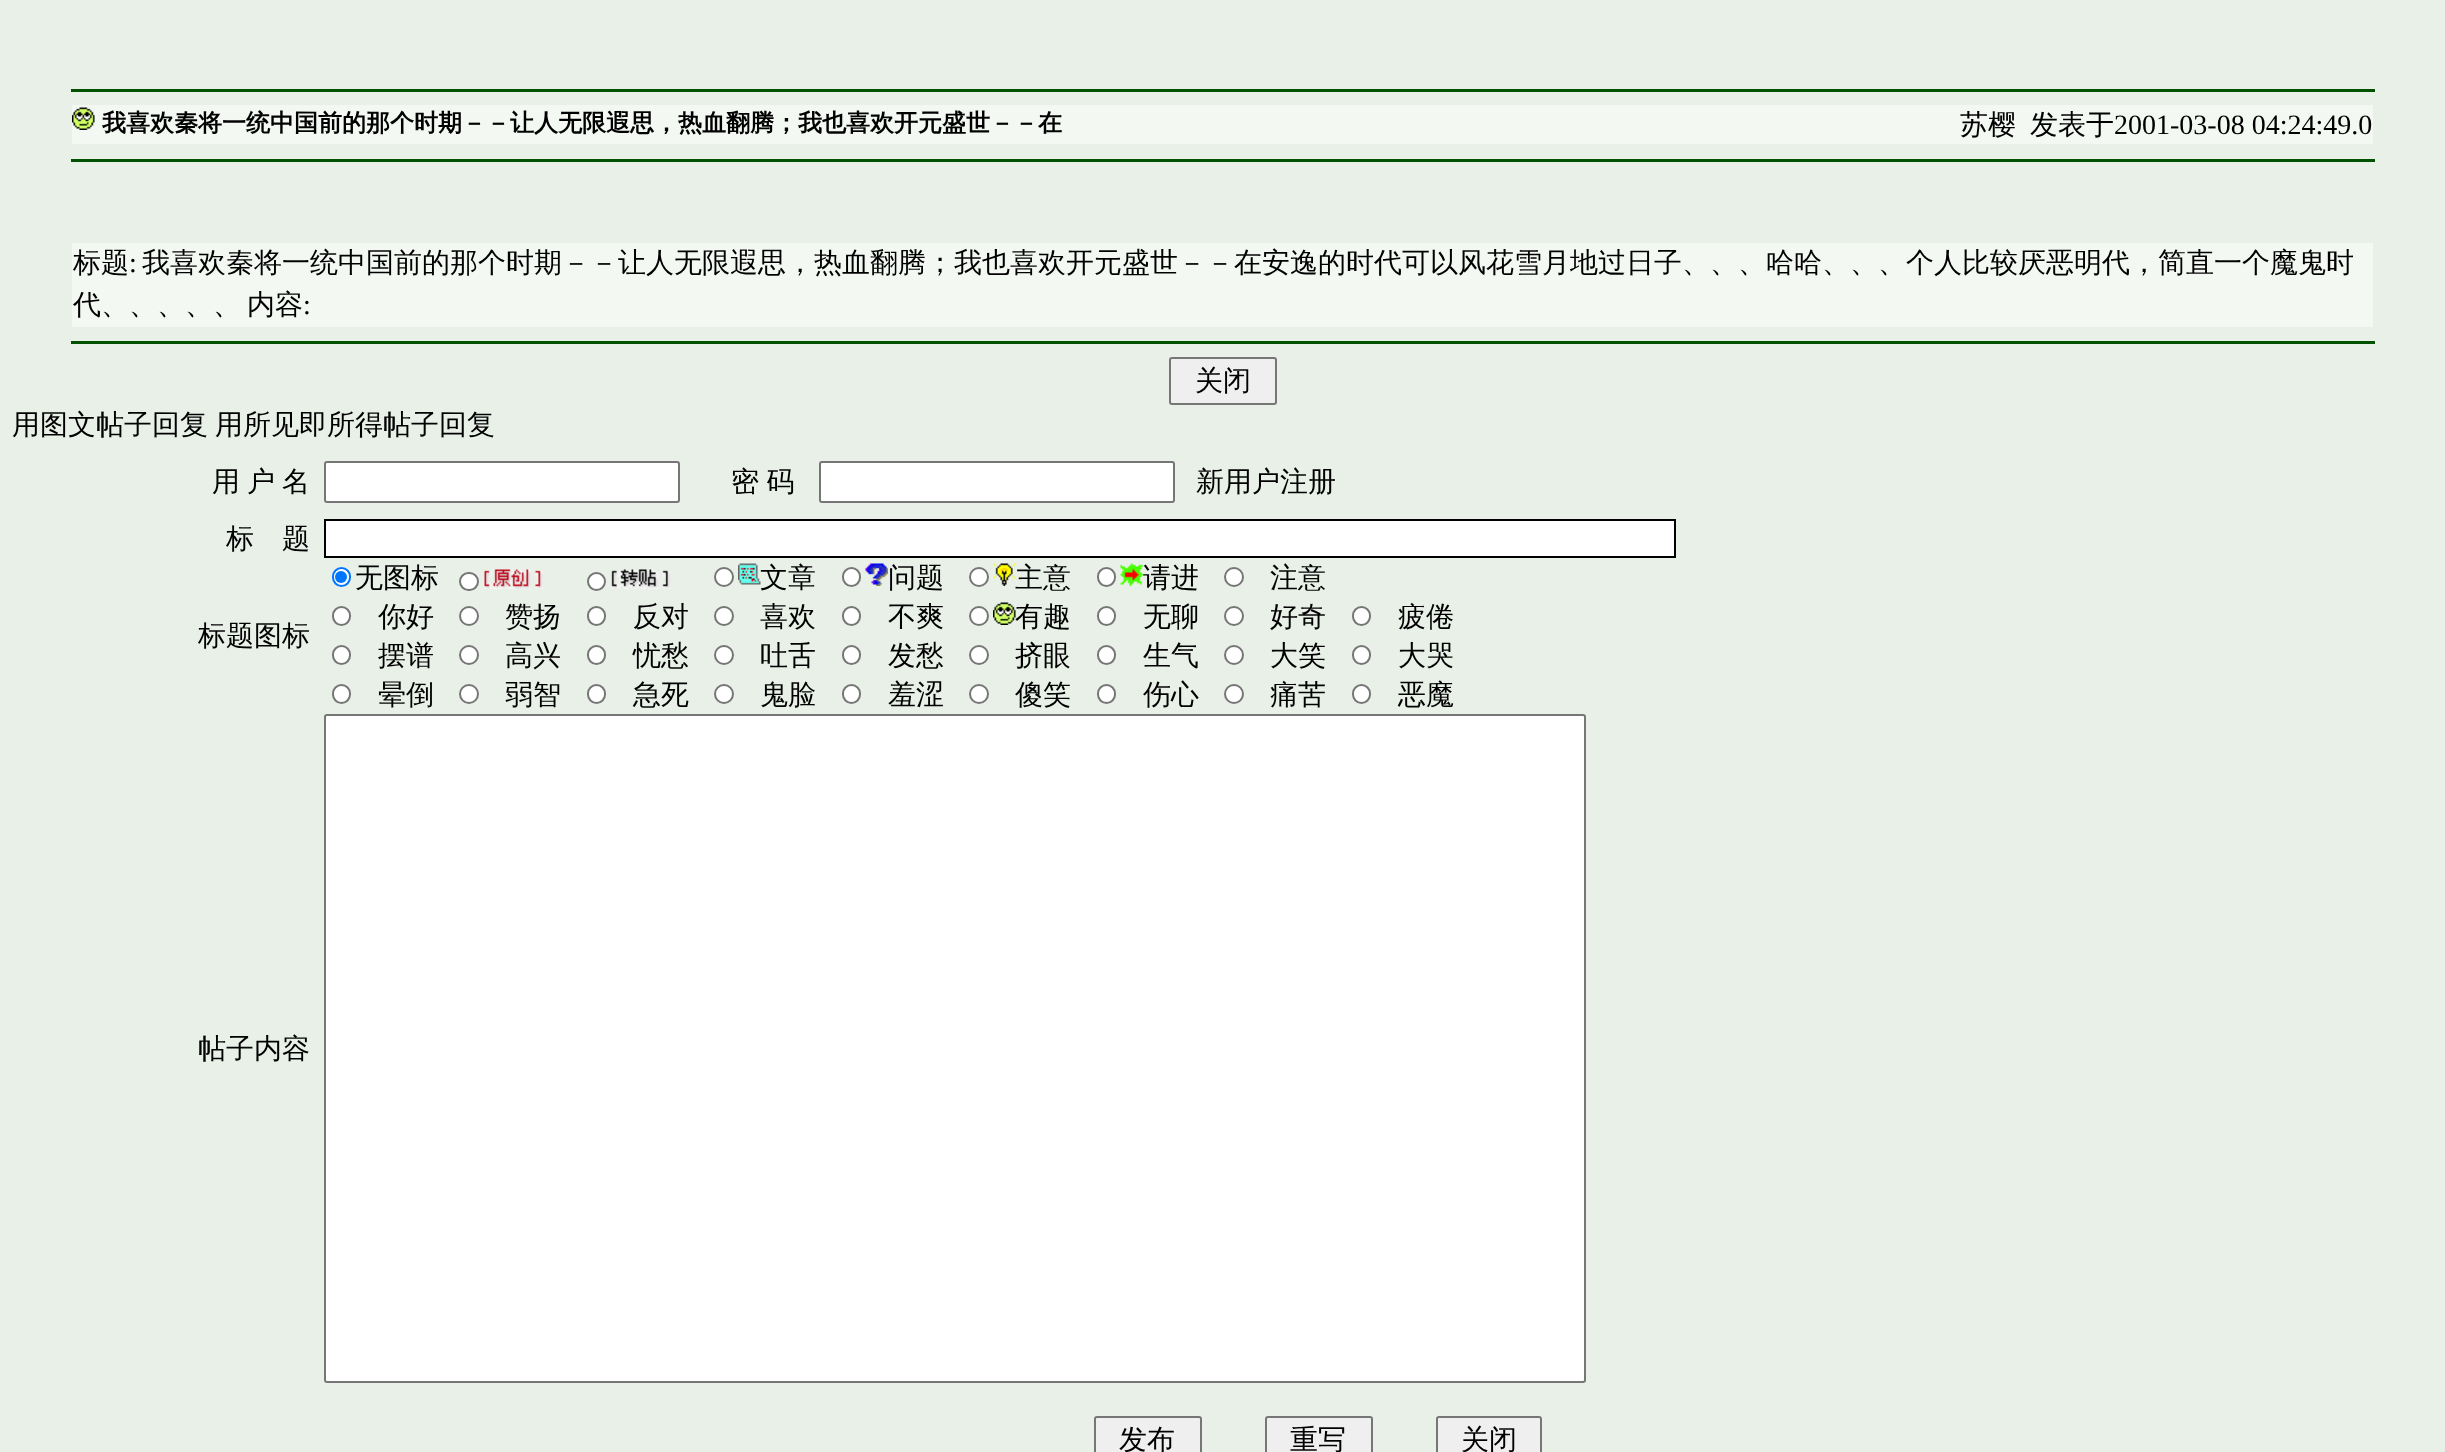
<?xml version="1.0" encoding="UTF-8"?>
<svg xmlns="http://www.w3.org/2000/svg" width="2445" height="1452">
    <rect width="100%" height="100%" fill="#E8F0E8"/>
    <rect x="71" y="89" width="2304" height="3" fill="#005100"/>
    <rect x="72" y="105" width="2301" height="39" fill="#F3F8F3"/>
    <image x="72" y="107" width="23" height="23" href="img_01.png"/>
    <text x="102" y="131" font-family="WenQuanYi Zen Hei" font-size="24" font-weight="700" fill="#000000">我喜欢秦将一统中国前的那个时期－－让人无限遐思，热血翻腾；我也喜欢开元盛世－－在</text>
    <text x="1960" y="134" font-family="WenQuanYi Zen Hei" font-size="28" font-weight="500" fill="#000000">苏樱</text>
    <text x="2030" y="134" font-family="WenQuanYi Zen Hei" font-size="28" font-weight="500" fill="#000000">发表于</text>
    <text x="2114" y="134" font-family="Liberation Serif" font-size="28" fill="#000000">2001-03-08 04:24:49.0</text>
    <rect x="71" y="159" width="2304" height="3" fill="#005100"/>
    <rect x="72" y="243" width="2301" height="84" fill="#F3F8F3"/>
    <text x="73" y="272" font-family="WenQuanYi Zen Hei" font-size="28" font-weight="500" fill="#000000">标题</text>
    <text x="129" y="272" font-family="Liberation Serif" font-size="28" fill="#000000">:</text>
    <text x="142" y="272" font-family="WenQuanYi Zen Hei" font-size="28" font-weight="500" fill="#000000">我喜欢秦将一统中国前的那个时期－－让人无限遐思，热血翻腾；我也喜欢开元盛世－－在安逸的时代可以风花雪月地过日子、、、哈哈、、、个人比较厌恶明代，简直一个魔鬼时</text>
    <text x="73" y="314" font-family="WenQuanYi Zen Hei" font-size="28" font-weight="500" fill="#000000">代、、、、、</text>
    <text x="247" y="314" font-family="WenQuanYi Zen Hei" font-size="28" font-weight="500" fill="#000000">内容</text>
    <text x="303" y="314" font-family="Liberation Serif" font-size="28" fill="#000000">:</text>
    <rect x="71" y="341" width="2304" height="3" fill="#005100"/>
    <rect x="1170" y="358" width="106" height="46" rx="2" fill="#EFEFEF" stroke="#767676" stroke-width="2"/>
    <text x="1195" y="390" font-family="WenQuanYi Zen Hei" font-size="28" font-weight="500" fill="#000000">关闭</text>
    <text x="12" y="434" font-family="WenQuanYi Zen Hei" font-size="28" font-weight="500" fill="#000000">用图文帖子回复</text>
    <text x="215" y="434" font-family="WenQuanYi Zen Hei" font-size="28" font-weight="500" fill="#000000">用所见即所得帖子回复</text>
    <text x="212" y="491" font-family="WenQuanYi Zen Hei" font-size="28" font-weight="500" fill="#000000">用</text>
    <text x="247" y="491" font-family="WenQuanYi Zen Hei" font-size="28" font-weight="500" fill="#000000">户</text>
    <text x="282" y="491" font-family="WenQuanYi Zen Hei" font-size="28" font-weight="500" fill="#000000">名</text>
    <rect x="325" y="462" width="354" height="40" rx="2" fill="#FFFFFF" stroke="#767676" stroke-width="2"/>
    <text x="731" y="491" word-spacing="-1" font-family="WenQuanYi Zen Hei" font-size="28" font-weight="500" fill="#000000">密 码</text>
    <rect x="820" y="462" width="354" height="40" rx="2" fill="#FFFFFF" stroke="#767676" stroke-width="2"/>
    <text x="1196" y="491" font-family="WenQuanYi Zen Hei" font-size="28" font-weight="500" fill="#000000">新用户注册</text>
    <text x="226" y="548" font-family="WenQuanYi Zen Hei" font-size="28" font-weight="500" fill="#000000">标</text>
    <text x="282" y="548" font-family="WenQuanYi Zen Hei" font-size="28" font-weight="500" fill="#000000">题</text>
    <rect x="325" y="520" width="1350" height="37" fill="#FFFFFF" stroke="#000000" stroke-width="2"/>
    <text x="198" y="645" font-family="WenQuanYi Zen Hei" font-size="28" font-weight="500" fill="#000000">标题图标</text>
    <rect x="333" y="568" width="17" height="18" rx="8.5" fill="#FFFFFF" stroke="#0075FF" stroke-width="2"/>
    <circle cx="341" cy="577" r="6" fill="#0075FF"/>
    <text x="355" y="587" font-family="WenQuanYi Zen Hei" font-size="28" font-weight="500" fill="#000000">无图标</text>
    <rect x="460" y="573" width="18" height="17" rx="8.5" fill="#FFFFFF" stroke="#767676" stroke-width="2"/>
    <image x="484" y="569" width="59" height="20" href="img_02.png"/>
    <circle cx="596.5" cy="581.5" r="8.5" fill="#FFFFFF" stroke="#767676" stroke-width="2"/>
    <image x="611" y="569" width="60" height="20" href="img_03.png"/>
    <circle cx="724" cy="577" r="9" fill="#FFFFFF" stroke="#767676" stroke-width="2"/>
    <image x="738" y="563" width="23" height="22" href="img_04.png"/>
    <text x="760" y="587" font-family="WenQuanYi Zen Hei" font-size="28" font-weight="500" fill="#000000">文章</text>
    <rect x="843" y="568" width="17" height="18" rx="8.5" fill="#FFFFFF" stroke="#767676" stroke-width="2"/>
    <image x="865" y="563" width="23" height="23" href="img_05.png"/>
    <text x="888" y="587" font-family="WenQuanYi Zen Hei" font-size="28" font-weight="500" fill="#000000">问题</text>
    <circle cx="979" cy="577" r="9" fill="#FFFFFF" stroke="#767676" stroke-width="2"/>
    <image x="993" y="563" width="23" height="23" href="img_06.png"/>
    <text x="1015" y="587" font-family="WenQuanYi Zen Hei" font-size="28" font-weight="500" fill="#000000">主意</text>
    <rect x="1098" y="568" width="17" height="18" rx="8.5" fill="#FFFFFF" stroke="#767676" stroke-width="2"/>
    <image x="1120" y="563" width="23" height="23" href="img_07.png"/>
    <text x="1143" y="587" font-family="WenQuanYi Zen Hei" font-size="28" font-weight="500" fill="#000000">请进</text>
    <circle cx="1234" cy="577" r="9" fill="#FFFFFF" stroke="#767676" stroke-width="2"/>
    <text x="1270" y="587" font-family="WenQuanYi Zen Hei" font-size="28" font-weight="500" fill="#000000">注意</text>
    <rect x="333" y="607" width="17" height="18" rx="8.5" fill="#FFFFFF" stroke="#767676" stroke-width="2"/>
    <text x="378" y="626" font-family="WenQuanYi Zen Hei" font-size="28" font-weight="500" fill="#000000">你好</text>
    <circle cx="469" cy="616" r="9" fill="#FFFFFF" stroke="#767676" stroke-width="2"/>
    <text x="505" y="626" font-family="WenQuanYi Zen Hei" font-size="28" font-weight="500" fill="#000000">赞扬</text>
    <rect x="588" y="607" width="17" height="18" rx="8.5" fill="#FFFFFF" stroke="#767676" stroke-width="2"/>
    <text x="633" y="626" font-family="WenQuanYi Zen Hei" font-size="28" font-weight="500" fill="#000000">反对</text>
    <circle cx="724" cy="616" r="9" fill="#FFFFFF" stroke="#767676" stroke-width="2"/>
    <text x="760" y="626" font-family="WenQuanYi Zen Hei" font-size="28" font-weight="500" fill="#000000">喜欢</text>
    <rect x="843" y="607" width="17" height="18" rx="8.5" fill="#FFFFFF" stroke="#767676" stroke-width="2"/>
    <text x="888" y="626" font-family="WenQuanYi Zen Hei" font-size="28" font-weight="500" fill="#000000">不爽</text>
    <circle cx="979" cy="616" r="9" fill="#FFFFFF" stroke="#767676" stroke-width="2"/>
    <image x="993" y="602" width="23" height="23" href="img_08.png"/>
    <text x="1015" y="626" font-family="WenQuanYi Zen Hei" font-size="28" font-weight="500" fill="#000000">有趣</text>
    <rect x="1098" y="607" width="17" height="18" rx="8.5" fill="#FFFFFF" stroke="#767676" stroke-width="2"/>
    <text x="1143" y="626" font-family="WenQuanYi Zen Hei" font-size="28" font-weight="500" fill="#000000">无聊</text>
    <circle cx="1234" cy="616" r="9" fill="#FFFFFF" stroke="#767676" stroke-width="2"/>
    <text x="1270" y="626" font-family="WenQuanYi Zen Hei" font-size="28" font-weight="500" fill="#000000">好奇</text>
    <rect x="1353" y="607" width="17" height="18" rx="8.5" fill="#FFFFFF" stroke="#767676" stroke-width="2"/>
    <text x="1398" y="626" font-family="WenQuanYi Zen Hei" font-size="28" font-weight="500" fill="#000000">疲倦</text>
    <rect x="333" y="646" width="17" height="18" rx="8.5" fill="#FFFFFF" stroke="#767676" stroke-width="2"/>
    <text x="378" y="665" font-family="WenQuanYi Zen Hei" font-size="28" font-weight="500" fill="#000000">摆谱</text>
    <circle cx="469" cy="655" r="9" fill="#FFFFFF" stroke="#767676" stroke-width="2"/>
    <text x="505" y="665" font-family="WenQuanYi Zen Hei" font-size="28" font-weight="500" fill="#000000">高兴</text>
    <rect x="588" y="646" width="17" height="18" rx="8.5" fill="#FFFFFF" stroke="#767676" stroke-width="2"/>
    <text x="633" y="665" font-family="WenQuanYi Zen Hei" font-size="28" font-weight="500" fill="#000000">忧愁</text>
    <circle cx="724" cy="655" r="9" fill="#FFFFFF" stroke="#767676" stroke-width="2"/>
    <text x="760" y="665" font-family="WenQuanYi Zen Hei" font-size="28" font-weight="500" fill="#000000">吐舌</text>
    <rect x="843" y="646" width="17" height="18" rx="8.5" fill="#FFFFFF" stroke="#767676" stroke-width="2"/>
    <text x="888" y="665" font-family="WenQuanYi Zen Hei" font-size="28" font-weight="500" fill="#000000">发愁</text>
    <circle cx="979" cy="655" r="9" fill="#FFFFFF" stroke="#767676" stroke-width="2"/>
    <text x="1015" y="665" font-family="WenQuanYi Zen Hei" font-size="28" font-weight="500" fill="#000000">挤眼</text>
    <rect x="1098" y="646" width="17" height="18" rx="8.5" fill="#FFFFFF" stroke="#767676" stroke-width="2"/>
    <text x="1143" y="665" font-family="WenQuanYi Zen Hei" font-size="28" font-weight="500" fill="#000000">生气</text>
    <circle cx="1234" cy="655" r="9" fill="#FFFFFF" stroke="#767676" stroke-width="2"/>
    <text x="1270" y="665" font-family="WenQuanYi Zen Hei" font-size="28" font-weight="500" fill="#000000">大笑</text>
    <rect x="1353" y="646" width="17" height="18" rx="8.5" fill="#FFFFFF" stroke="#767676" stroke-width="2"/>
    <text x="1398" y="665" font-family="WenQuanYi Zen Hei" font-size="28" font-weight="500" fill="#000000">大哭</text>
    <rect x="333" y="685" width="17" height="18" rx="8.5" fill="#FFFFFF" stroke="#767676" stroke-width="2"/>
    <text x="378" y="704" font-family="WenQuanYi Zen Hei" font-size="28" font-weight="500" fill="#000000">晕倒</text>
    <circle cx="469" cy="694" r="9" fill="#FFFFFF" stroke="#767676" stroke-width="2"/>
    <text x="505" y="704" font-family="WenQuanYi Zen Hei" font-size="28" font-weight="500" fill="#000000">弱智</text>
    <rect x="588" y="685" width="17" height="18" rx="8.5" fill="#FFFFFF" stroke="#767676" stroke-width="2"/>
    <text x="633" y="704" font-family="WenQuanYi Zen Hei" font-size="28" font-weight="500" fill="#000000">急死</text>
    <circle cx="724" cy="694" r="9" fill="#FFFFFF" stroke="#767676" stroke-width="2"/>
    <text x="760" y="704" font-family="WenQuanYi Zen Hei" font-size="28" font-weight="500" fill="#000000">鬼脸</text>
    <rect x="843" y="685" width="17" height="18" rx="8.5" fill="#FFFFFF" stroke="#767676" stroke-width="2"/>
    <text x="888" y="704" font-family="WenQuanYi Zen Hei" font-size="28" font-weight="500" fill="#000000">羞涩</text>
    <circle cx="979" cy="694" r="9" fill="#FFFFFF" stroke="#767676" stroke-width="2"/>
    <text x="1015" y="704" font-family="WenQuanYi Zen Hei" font-size="28" font-weight="500" fill="#000000">傻笑</text>
    <rect x="1098" y="685" width="17" height="18" rx="8.5" fill="#FFFFFF" stroke="#767676" stroke-width="2"/>
    <text x="1143" y="704" font-family="WenQuanYi Zen Hei" font-size="28" font-weight="500" fill="#000000">伤心</text>
    <circle cx="1234" cy="694" r="9" fill="#FFFFFF" stroke="#767676" stroke-width="2"/>
    <text x="1270" y="704" font-family="WenQuanYi Zen Hei" font-size="28" font-weight="500" fill="#000000">痛苦</text>
    <rect x="1353" y="685" width="17" height="18" rx="8.5" fill="#FFFFFF" stroke="#767676" stroke-width="2"/>
    <text x="1398" y="704" font-family="WenQuanYi Zen Hei" font-size="28" font-weight="500" fill="#000000">恶魔</text>
    <text x="198" y="1058" font-family="WenQuanYi Zen Hei" font-size="28" font-weight="500" fill="#000000">帖子内容</text>
    <rect x="325" y="715" width="1260" height="667" rx="2" fill="#FFFFFF" stroke="#767676" stroke-width="2"/>
    <rect x="1095" y="1417" width="106" height="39" rx="2" fill="#EFEFEF" stroke="#767676" stroke-width="2"/>
    <text x="1119" y="1449" font-family="WenQuanYi Zen Hei" font-size="28" font-weight="500" fill="#000000">发布</text>
    <rect x="1266" y="1417" width="106" height="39" rx="2" fill="#EFEFEF" stroke="#767676" stroke-width="2"/>
    <text x="1290" y="1449" font-family="WenQuanYi Zen Hei" font-size="28" font-weight="500" fill="#000000">重写</text>
    <rect x="1437" y="1417" width="104" height="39" rx="2" fill="#EFEFEF" stroke="#767676" stroke-width="2"/>
    <text x="1461" y="1449" font-family="WenQuanYi Zen Hei" font-size="28" font-weight="500" fill="#000000">关闭</text>
</svg>
